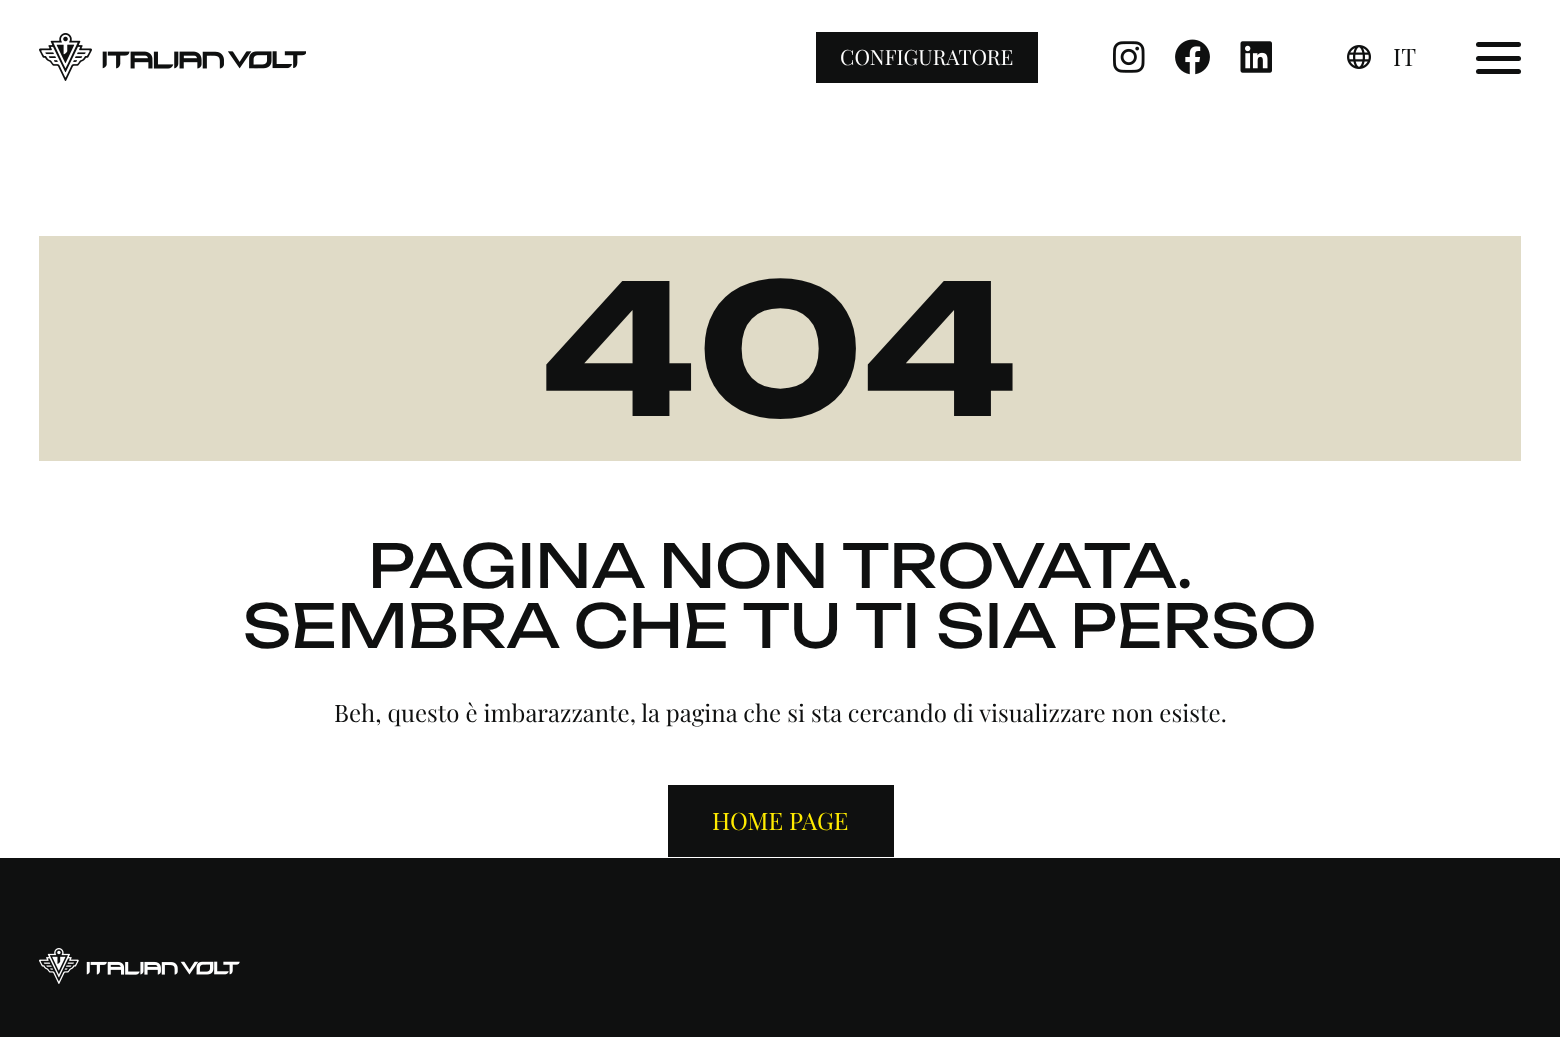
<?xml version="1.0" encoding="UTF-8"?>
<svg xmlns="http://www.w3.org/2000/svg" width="1560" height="1037">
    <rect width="100%" height="100%" fill="#FFFFFF"/>
    <image x="39" y="33" width="267" height="48" href="img_01.png"/>
    <rect x="816" y="32" width="222" height="51" fill="#0F1010"/>
    <text x="840" y="65" font-family="Playfair Display" font-size="21" fill="#FEFEFE">CONFIGURATORE</text>
    <image x="1113" y="41" width="32" height="32" href="img_02.png"/>
    <image x="1175" y="39" width="35" height="36" href="img_03.png"/>
    <image x="1240" y="41" width="32" height="32" href="img_04.png"/>
    <image x="1347" y="45" width="24" height="24" href="img_05.png"/>
    <text x="1393" y="66" font-family="Playfair Display" font-size="24" fill="#0F1010">IT</text>
    <rect x="1476" y="42" width="45" height="5" rx="2.5" fill="#0F1010"/>
    <rect x="1476" y="56" width="45" height="5" rx="2.5" fill="#0F1010"/>
    <rect x="1476" y="69" width="45" height="5" rx="2.5" fill="#0F1010"/>
    <rect x="39" y="236" width="1482" height="225" fill="#E0DBC7"/>
    <text x="542" y="416" font-family="Unbounded" font-size="180" font-weight="700" fill="#0F1010">404</text>
    <text x="368" y="588" font-family="Unbounded" font-size="60" fill="#0F1010">PAGINA NON TROVATA.</text>
    <text x="243" y="648" font-family="Unbounded" font-size="60" fill="#0F1010">SEMBRA CHE TU TI SIA PERSO</text>
    <text x="334" y="722" font-family="Playfair Display" font-size="24" fill="#0F1010">Beh, questo è imbarazzante, la pagina che si sta cercando di visualizzare non esiste.</text>
    <rect x="668" y="785" width="226" height="72" fill="#0F1010"/>
    <text x="712" y="830" font-family="Playfair Display" font-size="24" fill="#FFEB00">HOME PAGE</text>
    <rect x="0" y="858" width="1560" height="179" fill="#0F1010"/>
    <image x="39" y="948" width="201" height="36" href="img_06.png"/>
</svg>
